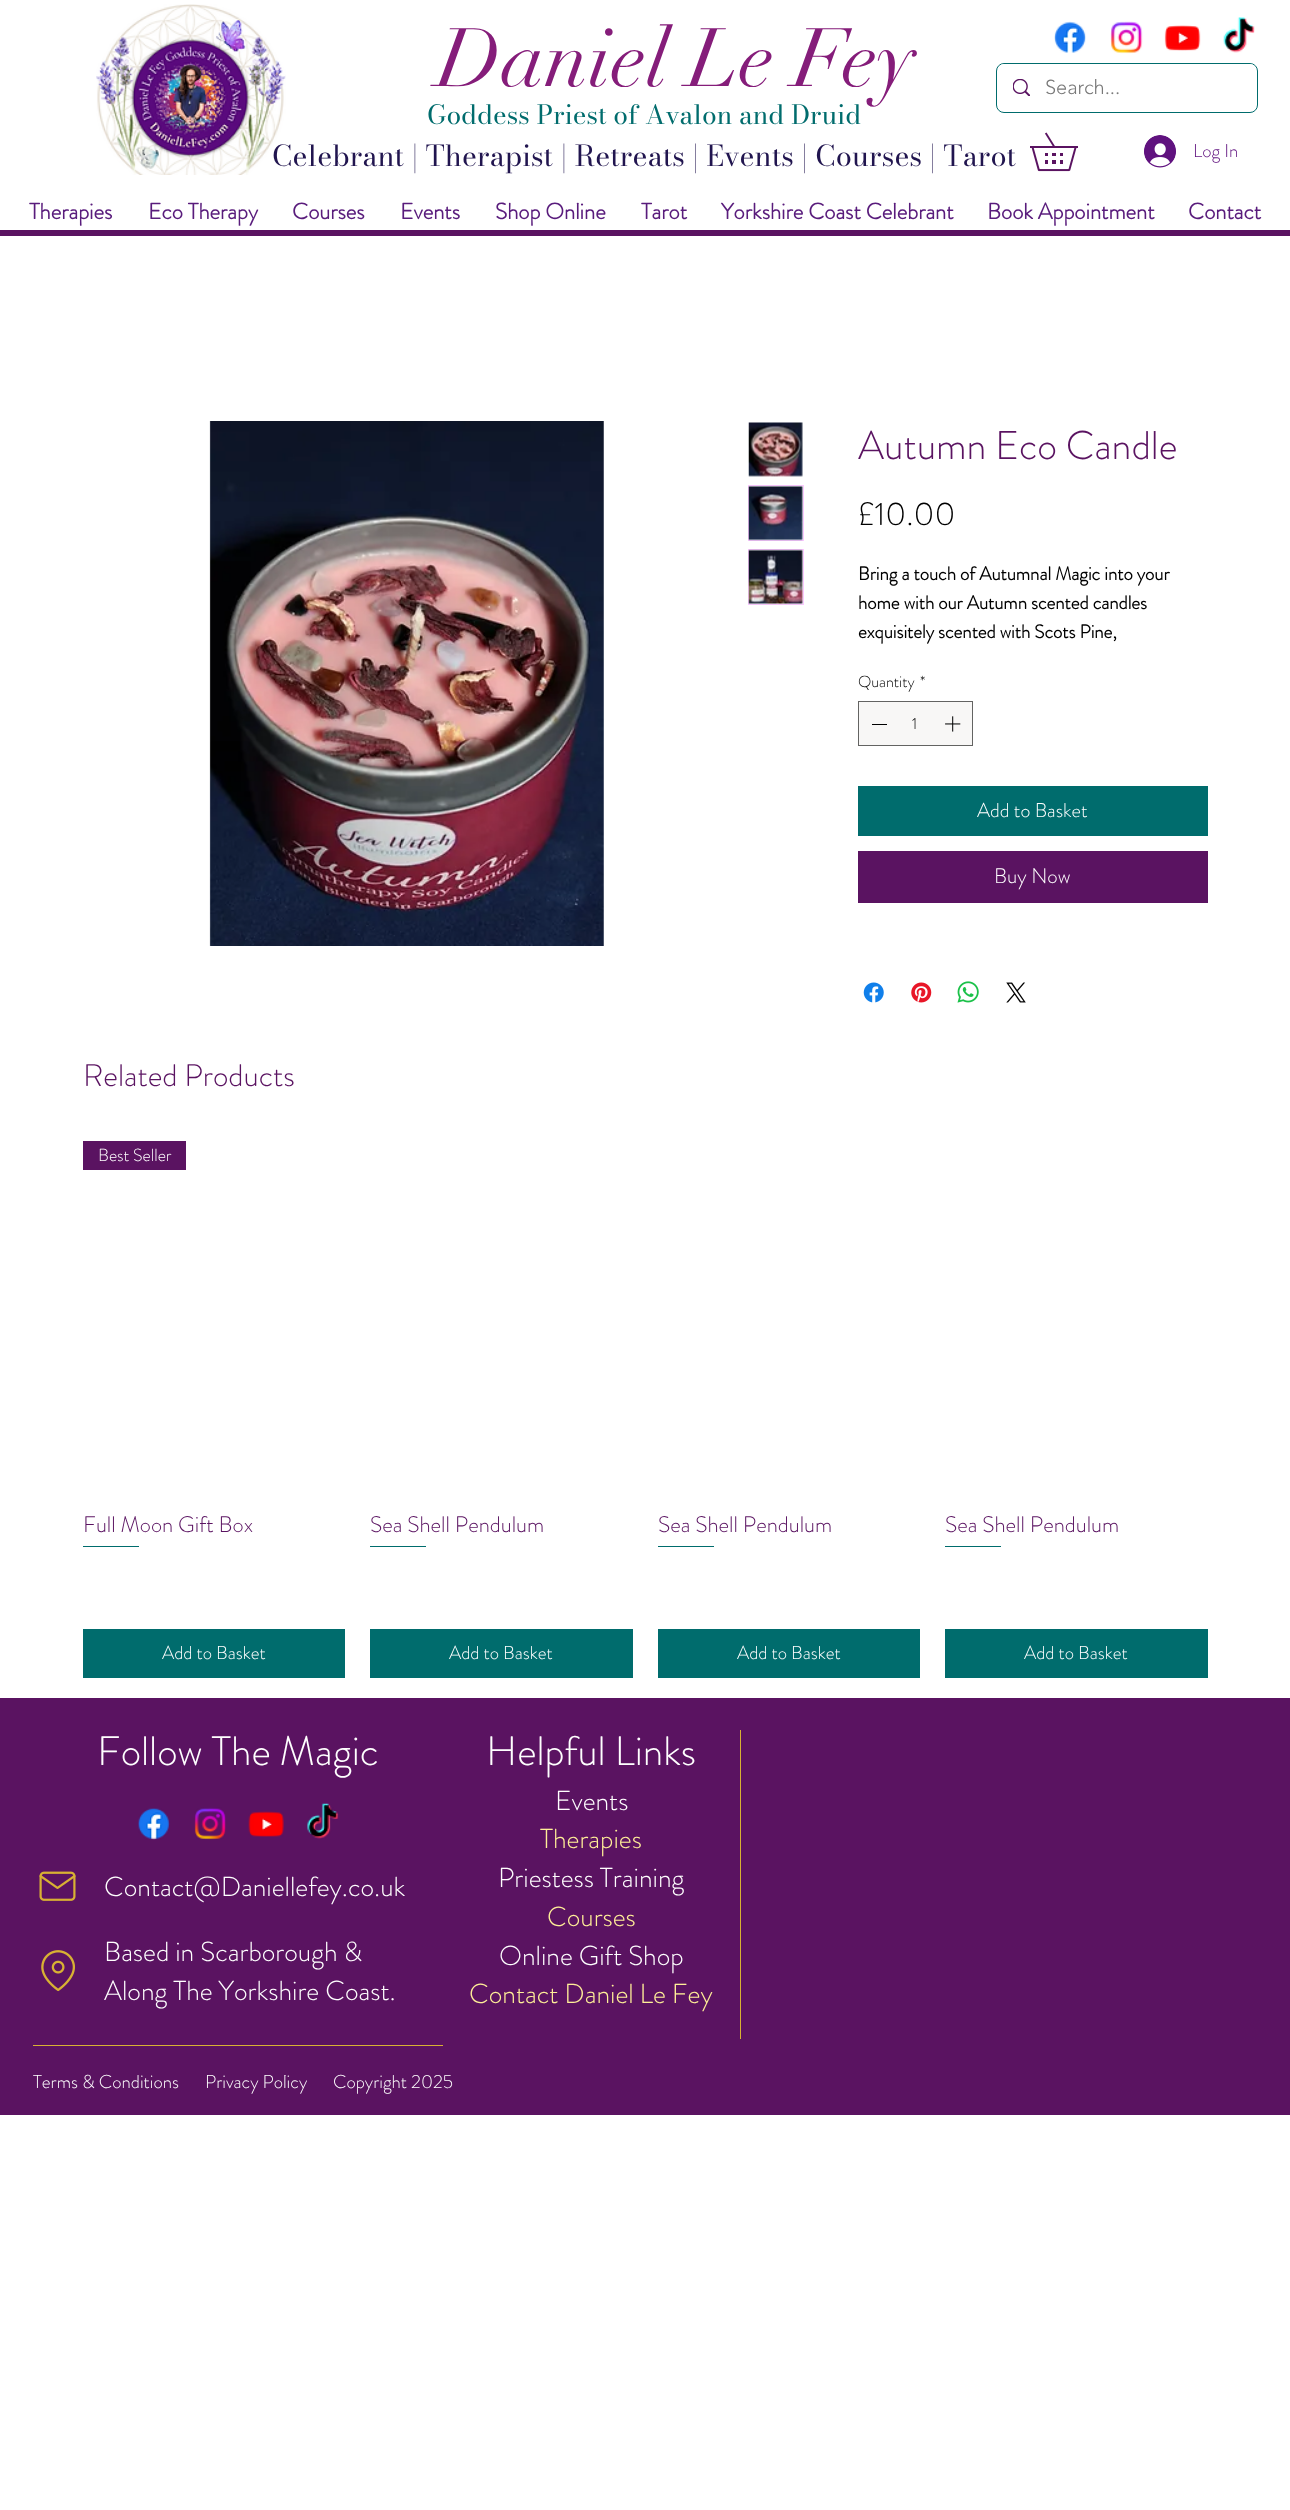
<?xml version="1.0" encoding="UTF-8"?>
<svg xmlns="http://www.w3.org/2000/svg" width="1290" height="2510">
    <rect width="100%" height="100%" fill="#FFFFFF"/>
    <image x="96" y="4" width="190" height="171" href="img_01.png"/>
    <text x="437" y="86" font-family="didot" font-size="81.25" fill="#851D7A">Daniel Le Fey</text>
    <image x="1054" y="21" width="32" height="32" href="img_02.png"/>
    <image x="1110" y="21" width="33" height="33" href="img_03.png"/>
    <image x="1164" y="25" width="37" height="26" href="img_04.png"/>
    <image x="1223" y="17" width="32" height="36" href="img_05.png"/>
    <rect x="996.5" y="63.5" width="261" height="49" rx="7.5" fill="none" stroke="#006C6D"/>
    <rect x="998" y="64" width="258" height="47" rx="6" fill="#FFFFFF"/>
    <image x="1013" y="79" width="17" height="17" href="img_06.png"/>
    <text x="1045" y="94" font-family="'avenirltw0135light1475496'" font-size="20" font-weight="300" fill="#787878">Search...</text>
    <text x="427" y="124" font-family="Bodoni Moda" font-size="26.25" fill="#006C6D">Goddess Priest of Avalon and Druid</text>
    <text x="272" y="166" font-family="Bodoni Moda" font-size="28.75" fill="#21154F">Celebrant | Therapist | Retreats | Events | Courses | Tarot</text>
    <image x="1030" y="132" width="48" height="40" href="img_07.png"/>
    <image x="1144" y="135" width="32" height="33" href="img_08.png"/>
    <text x="1193" y="157" font-family="'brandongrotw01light'" font-size="18.75" font-weight="300" fill="#60127F">Log In</text>
    <text x="29" y="219" font-family="'brandongrotw01light'" font-size="22.5" font-weight="700" fill="#591C7C">Therapies</text>
    <text x="148" y="219" font-family="'brandongrotw01light'" font-size="22.5" font-weight="700" fill="#591C7C">Eco Therapy</text>
    <text x="292" y="219" font-family="'brandongrotw01light'" font-size="22.5" font-weight="700" fill="#591C7C">Courses</text>
    <text x="400" y="219" font-family="'brandongrotw01light'" font-size="22.5" font-weight="700" fill="#591C7C">Events</text>
    <text x="495" y="219" font-family="'brandongrotw01light'" font-size="22.5" font-weight="700" fill="#591C7C">Shop Online</text>
    <text x="641" y="219" font-family="'brandongrotw01light'" font-size="22.5" font-weight="700" fill="#591C7C">Tarot</text>
    <text x="721" y="219" font-family="'brandongrotw01light'" font-size="22.5" font-weight="700" fill="#591C7C">Yorkshire Coast Celebrant</text>
    <text x="987" y="219" font-family="'brandongrotw01light'" font-size="22.5" font-weight="700" fill="#591C7C">Book Appointment</text>
    <text x="1188" y="219" font-family="'brandongrotw01light'" font-size="22.5" font-weight="700" fill="#591C7C">Contact</text>
    <rect x="0" y="230" width="1290" height="6" fill="#5A1361"/>
    <image x="209" y="421" width="395" height="525" href="img_09.png"/>
    <image x="748" y="422" width="55" height="55" href="img_10.png"/>
    <rect x="748.5" y="485.5" width="55" height="55" fill="none" stroke="#FBC8FF"/>
    <image x="748" y="485" width="55" height="56" href="img_11.png"/>
    <rect x="748.5" y="549.5" width="55" height="55" fill="none" stroke="#FBC8FF"/>
    <image x="748" y="549" width="55" height="56" href="img_12.png"/>
    <text x="858" y="459" font-family="'brandongrotw01light'" font-size="40" font-weight="300" fill="#5A1361">Autumn Eco Candle</text>
    <text x="858" y="525" font-family="'brandongrotw01light'" font-size="32.5" font-weight="300" fill="#000000">£10.00</text>
    <text font-family="'brandongrotw01light'" font-size="18.75" font-weight="700" fill="#000000">
        <tspan x="858" y="580">Bring a touch of Autumnal Magic into your</tspan>
        <tspan x="858" y="609">home with our Autumn scented candles</tspan>
        <tspan x="858" y="638">exquisitely scented with Scots Pine,</tspan>
    </text>
    <text x="858" y="687" font-family="'brandongrotw01light'" font-size="16" font-weight="300" fill="#000000">Quantity</text>
    <text x="920" y="687" font-family="'brandongrotw01light'" font-size="16" font-weight="300" fill="#000000">*</text>
    <rect x="858.5" y="701.5" width="114" height="44" fill="#F8F7F6" stroke="#636362"/>
    <rect x="872" y="724" width="15" height="1" fill="#000000"/>
    <text x="912" y="729" font-family="'brandongrotw01light'" font-size="16" font-weight="300" fill="#000000">1</text>
    <image x="945" y="716" width="16" height="16" href="img_13.png"/>
    <rect x="858" y="786" width="350" height="50" fill="#006C6D"/>
    <text x="977" y="817" font-family="'brandongrotw01light'" font-size="20" font-weight="300" fill="#FFFFFF">Add to Basket</text>
    <rect x="858" y="851" width="350" height="52" fill="#5A1361"/>
    <text x="994" y="883" font-family="'brandongrotw01light'" font-size="21" font-weight="300" fill="#FFFFFF">Buy Now</text>
    <image x="863" y="982" width="21" height="21" href="img_14.png"/>
    <image x="911" y="982" width="21" height="21" href="img_15.png"/>
    <image x="957" y="981" width="22" height="22" href="img_16.png"/>
    <image x="1006" y="982" width="20" height="21" href="img_17.png"/>
    <text x="83" y="1086" font-family="'brandongrotw01light'" font-size="31.25" font-weight="300" fill="#5A1361">Related Products</text>
    <rect x="83" y="1141" width="103" height="29" fill="#5A1361"/>
    <text x="98" y="1161" font-family="'brandongrotw01light'" font-size="17.5" font-weight="300" fill="#FFFFFF">Best Seller</text>
    <text x="83" y="1532" font-family="'brandongrotw01light'" font-size="22.5" font-weight="300" fill="#5A1361">Full Moon Gift Box</text>
    <rect x="83" y="1546" width="56" height="1" fill="#006C6D"/>
    <rect x="83" y="1629" width="262" height="49" fill="#006C6D"/>
    <text x="162" y="1659" font-family="'brandongrotw01light'" font-size="18.75" font-weight="300" fill="#FFFFFF">Add to Basket</text>
    <text x="370" y="1532" font-family="'brandongrotw01light'" font-size="22.5" font-weight="300" fill="#5A1361">Sea Shell Pendulum</text>
    <rect x="370" y="1546" width="56" height="1" fill="#006C6D"/>
    <rect x="370" y="1629" width="263" height="49" fill="#006C6D"/>
    <text x="449" y="1659" font-family="'brandongrotw01light'" font-size="18.75" font-weight="300" fill="#FFFFFF">Add to Basket</text>
    <text x="658" y="1532" font-family="'brandongrotw01light'" font-size="22.5" font-weight="300" fill="#5A1361">Sea Shell Pendulum</text>
    <rect x="658" y="1546" width="56" height="1" fill="#006C6D"/>
    <rect x="658" y="1629" width="262" height="49" fill="#006C6D"/>
    <text x="737" y="1659" font-family="'brandongrotw01light'" font-size="18.75" font-weight="300" fill="#FFFFFF">Add to Basket</text>
    <text x="945" y="1532" font-family="'brandongrotw01light'" font-size="22.5" font-weight="300" fill="#5A1361">Sea Shell Pendulum</text>
    <rect x="945" y="1546" width="56" height="1" fill="#006C6D"/>
    <rect x="945" y="1629" width="263" height="49" fill="#006C6D"/>
    <text x="1024" y="1659" font-family="'brandongrotw01light'" font-size="18.75" font-weight="300" fill="#FFFFFF">Add to Basket</text>
    <rect x="0" y="1698" width="1290" height="417" fill="#5A1361"/>
    <text x="97" y="1765" font-family="'brandongrotw01light'" font-size="41.25" font-weight="300" fill="#FFFFFF">Follow The Magic</text>
    <text x="486" y="1765" font-family="'brandongrotw01light'" font-size="41.25" font-weight="300" fill="#FFFFFF">Helpful Links</text>
    <rect x="740" y="1730" width="1" height="309" fill="#D8B133"/>
    <image x="138" y="1808" width="32" height="32" href="img_18.png"/>
    <image x="194" y="1807" width="32" height="33" href="img_19.png"/>
    <image x="248" y="1811" width="36" height="26" href="img_20.png"/>
    <image x="307" y="1803" width="32" height="36" href="img_21.png"/>
    <text x="555" y="1810" font-family="'brandongrotw01light'" font-size="27.5" font-weight="300" fill="#FFFFFF">Events</text>
    <text x="540" y="1848" font-family="'brandongrotw01light'" font-size="27.5" font-weight="300" fill="#FFEF98">Therapies</text>
    <text x="498" y="1887" font-family="'brandongrotw01light'" font-size="27.5" font-weight="300" fill="#FFFFFF">Priestess Training</text>
    <text x="547" y="1926" font-family="'brandongrotw01light'" font-size="27.5" font-weight="300" fill="#FFEF98">Courses</text>
    <text x="499" y="1965" font-family="'brandongrotw01light'" font-size="27.5" font-weight="300" fill="#FFFFFF">Online Gift Shop</text>
    <text x="469" y="2003" font-family="'brandongrotw01light'" font-size="27.5" font-weight="300" fill="#FFEF98">Contact Daniel Le Fey</text>
    <image x="39" y="1871" width="37" height="30" href="img_22.png"/>
    <text x="104" y="1896" font-family="'brandongrotw01light'" font-size="27.5" font-weight="300" fill="#FFFFFF">Contact@Daniellefey.co.uk</text>
    <image x="41" y="1950" width="34" height="42" href="img_23.png"/>
    <text font-family="'brandongrotw01light'" font-size="27.5" font-weight="300" fill="#FFFFFF">
        <tspan x="104" y="1961">Based in Scarborough &amp;</tspan>
        <tspan x="104" y="2000">Along The Yorkshire Coast.</tspan>
    </text>
    <rect x="33" y="2045" width="410" height="1" fill="#D8B133"/>
    <text x="33" y="2088" font-family="'brandongrotw01light'" font-size="18.75" font-weight="300" fill="#FFFFFF">Terms &amp; Conditions</text>
    <text x="205" y="2088" font-family="'brandongrotw01light'" font-size="18.75" font-weight="300" fill="#FFFFFF">Privacy Policy</text>
    <text x="333" y="2088" font-family="'brandongrotw01light'" font-size="18.75" font-weight="300" fill="#FFFFFF">Copyright 2025</text>
</svg>
